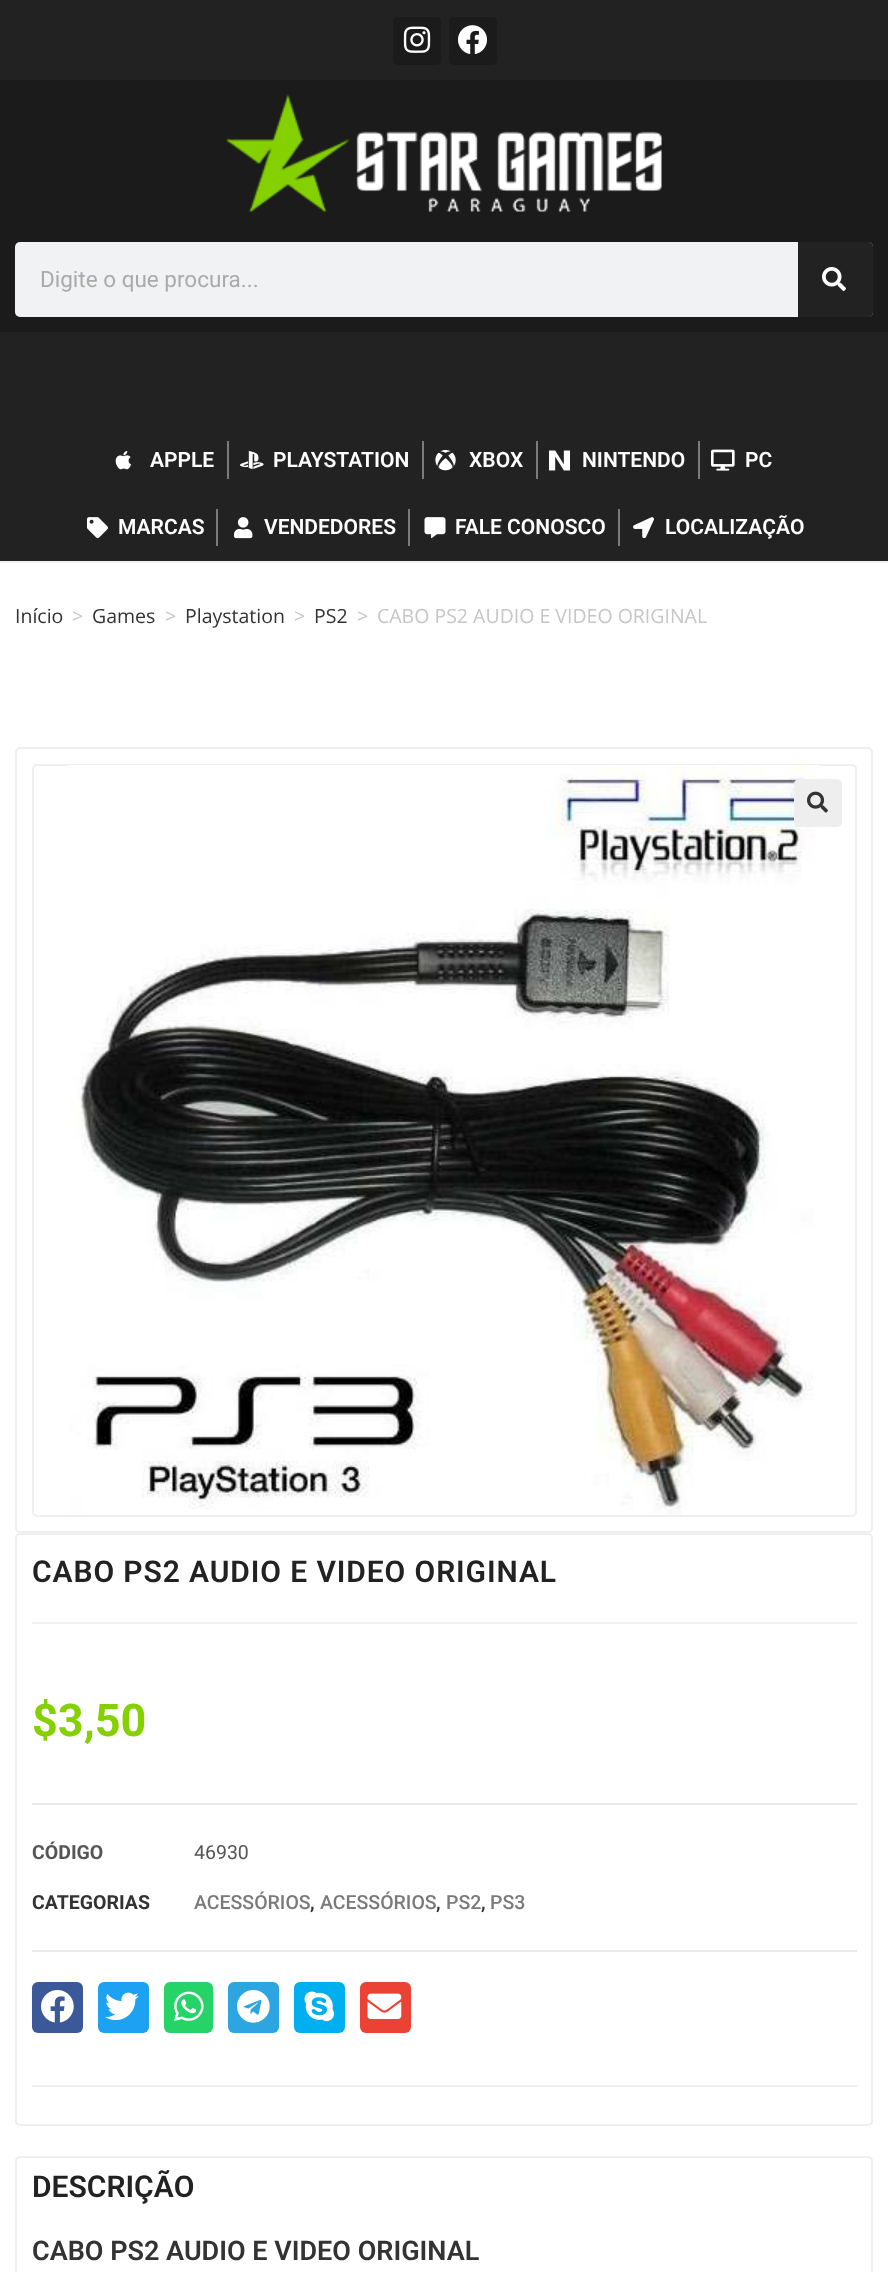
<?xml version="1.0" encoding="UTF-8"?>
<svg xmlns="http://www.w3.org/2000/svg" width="888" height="2272">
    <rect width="100%" height="100%" fill="#FFFFFF"/>
    <rect x="0" y="561" width="888" height="2" fill="#F1F1F1"/>
    <rect x="0" y="0" width="888" height="80" fill="#222222"/>
    <rect x="393" y="17" width="48" height="48" rx="5" fill="#1B1B1B"/>
    <image x="403" y="26" width="28" height="27" href="img_01.png"/>
    <rect x="449" y="17" width="48" height="48" rx="5" fill="#1B1B1B"/>
    <image x="458" y="25" width="29" height="29" href="img_02.png"/>
    <rect x="0" y="80" width="888" height="252" fill="#1B1B1B"/>
    <image x="226" y="94" width="436" height="118" href="img_03.png"/>
    <rect x="15" y="242" width="858" height="75" rx="5" fill="#F1F2F3"/>
    <text x="40" y="287" font-family="Roboto" font-size="22.5" fill="#AAAAAA">Digite o que procura...</text>
    <path d="M 798 242 H 868 C 871 242 873 244 873 247 V 312 C 873 315 871 317 868 317 H 798 Z" fill="#222222"/>
    <image x="822" y="267" width="24" height="24" href="img_04.png"/>
    <rect x="0" y="332" width="888" height="229" fill="#222222"/>
    <image x="115" y="451" width="16" height="19" href="img_05.png"/>
    <text x="150" y="467" font-family="Roboto" font-size="21" font-weight="600" fill="#FFFFFF">APPLE</text>
    <rect x="227" y="441" width="2" height="38" fill="#7A7A7A"/>
    <image x="240" y="451" width="24" height="19" href="img_06.png"/>
    <text x="273" y="467" font-family="Roboto" font-size="21" font-weight="600" fill="#FFFFFF">PLAYSTATION</text>
    <rect x="422" y="441" width="2" height="38" fill="#7A7A7A"/>
    <image x="435" y="449" width="21" height="22" href="img_07.png"/>
    <text x="469" y="467" font-family="Roboto" font-size="21" font-weight="600" fill="#FFFFFF">XBOX</text>
    <rect x="536" y="441" width="2" height="38" fill="#7A7A7A"/>
    <image x="549" y="450" width="21" height="21" href="img_08.png"/>
    <text x="582" y="467" font-family="Roboto" font-size="21" font-weight="600" fill="#FFFFFF">NINTENDO</text>
    <rect x="698" y="441" width="2" height="38" fill="#7A7A7A"/>
    <image x="711" y="449" width="24" height="22" href="img_09.png"/>
    <text x="745" y="467" font-family="Roboto" font-size="21" font-weight="600" fill="#FFFFFF">PC</text>
    <image x="87" y="517" width="21" height="22" href="img_10.png"/>
    <text x="118" y="534" font-family="Roboto" font-size="21" font-weight="600" fill="#FFFFFF">MARCAS</text>
    <rect x="216" y="509" width="2" height="37" fill="#7A7A7A"/>
    <image x="234" y="517" width="19" height="22" href="img_11.png"/>
    <text x="264" y="534" font-family="Roboto" font-size="21" font-weight="600" fill="#FFFFFF">VENDEDORES</text>
    <rect x="408" y="509" width="2" height="37" fill="#7A7A7A"/>
    <image x="424" y="517" width="22" height="22" href="img_12.png"/>
    <text x="455" y="534" font-family="Roboto" font-size="21" font-weight="600" fill="#FFFFFF">FALE CONOSCO</text>
    <rect x="618" y="509" width="2" height="37" fill="#7A7A7A"/>
    <image x="633" y="517" width="21" height="22" href="img_13.png"/>
    <text x="665" y="534" font-family="Roboto" font-size="21" font-weight="600" fill="#FFFFFF">LOCALIZAÇÃO</text>
    <text x="15" y="623" font-family="Open Sans" font-size="19.5" fill="#333333">Início</text>
    <text x="72" y="623" font-family="Open Sans" font-size="19.5" fill="#C6C6C6">&gt;</text>
    <text x="92" y="623" font-family="Open Sans" font-size="19.5" fill="#333333">Games</text>
    <text x="165" y="623" font-family="Open Sans" font-size="19.5" fill="#C6C6C6">&gt;</text>
    <text x="185" y="623" font-family="Open Sans" font-size="19.5" fill="#333333">Playstation</text>
    <text x="294" y="623" font-family="Open Sans" font-size="19.5" fill="#C6C6C6">&gt;</text>
    <text x="314" y="623" font-family="Open Sans" font-size="19.5" fill="#333333">PS2</text>
    <text x="357" y="623" font-family="Open Sans" font-size="19.5" fill="#C6C6C6">&gt;</text>
    <text x="377" y="623" font-family="Open Sans" font-size="19.5" fill="#C6C6C6">CABO PS2 AUDIO E VIDEO ORIGINAL</text>
    <rect x="16" y="748" width="856" height="784" rx="4" fill="none" stroke="#EFEFEF" stroke-width="2"/>
    <rect x="33" y="765" width="823" height="751" rx="4" fill="none" stroke="#EFEFEF" stroke-width="2"/>
    <image x="69" y="765" width="750" height="750" href="img_14.png"/>
    <rect x="794" y="779" width="48" height="48" rx="5" fill="#EEEEEE"/>
    <image x="807" y="791" width="21" height="22" href="img_15.png"/>
    <rect x="16" y="1534" width="856" height="591" rx="4" fill="none" stroke="#EFEFEF" stroke-width="2"/>
    <rect x="32" y="1622" width="825" height="2" fill="#F1F1F1"/>
    <text x="32" y="1582" font-family="Roboto" font-size="30" font-weight="600" letter-spacing="0.9" fill="#222222">CABO PS2 AUDIO E VIDEO ORIGINAL</text>
    <text x="32" y="1736" font-family="Roboto" font-size="45" font-weight="700" fill="#84D000">$3,50</text>
    <rect x="32" y="1803" width="825" height="2" fill="#EAEAEA"/>
    <rect x="32" y="1950" width="825" height="2" fill="#EAEAEA"/>
    <text x="32" y="1859" font-family="Roboto" font-size="19.5" font-weight="700" fill="#555555">CÓDIGO</text>
    <text x="194" y="1859" font-family="Roboto" font-size="19.5" fill="#555555">46930</text>
    <text x="32" y="1909" font-family="Roboto" font-size="19.5" font-weight="700" fill="#333333">CATEGORIAS</text>
    <text x="194" y="1909" font-family="Roboto" font-size="19.5" font-weight="500" fill="#7A7A7A">ACESSÓRIOS</text>
    <text x="310" y="1909" font-family="Roboto" font-size="19.5" font-weight="600" fill="#333333">,</text>
    <text x="320" y="1909" font-family="Roboto" font-size="19.5" font-weight="500" fill="#7A7A7A">ACESSÓRIOS</text>
    <text x="436" y="1909" font-family="Roboto" font-size="19.5" font-weight="600" fill="#333333">,</text>
    <text x="446" y="1909" font-family="Roboto" font-size="19.5" font-weight="500" fill="#7A7A7A">PS2</text>
    <text x="481" y="1909" font-family="Roboto" font-size="19.5" font-weight="600" fill="#333333">,</text>
    <text x="490" y="1909" font-family="Roboto" font-size="19.5" font-weight="500" fill="#7A7A7A">PS3</text>
    <rect x="32" y="1982" width="51" height="51" rx="6" fill="#3B5998"/>
    <image x="41" y="1990" width="33" height="33" href="img_16.png"/>
    <rect x="98" y="1982" width="51" height="51" rx="6" fill="#1DA1F2"/>
    <image x="105" y="1992" width="34" height="29" href="img_17.png"/>
    <rect x="164" y="1982" width="49" height="51" rx="6" fill="#25D366"/>
    <image x="174" y="1991" width="30" height="30" href="img_18.png"/>
    <rect x="228" y="1982" width="51" height="51" rx="6" fill="#2CA5E0"/>
    <image x="237" y="1990" width="33" height="33" href="img_19.png"/>
    <rect x="294" y="1982" width="51" height="51" rx="6" fill="#00AFF0"/>
    <image x="304" y="1991" width="30" height="31" href="img_20.png"/>
    <rect x="360" y="1982" width="51" height="51" rx="6" fill="#EA4335"/>
    <image x="367" y="1993" width="35" height="26" href="img_21.png"/>
    <rect x="32" y="2085" width="825" height="2" fill="#EFEFEF"/>
    <rect x="16" y="2157" width="856" height="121" rx="4" fill="none" stroke="#EFEFEF" stroke-width="2"/>
    <text x="32" y="2197" font-family="Roboto" font-size="30" font-weight="600" fill="#222222">DESCRIÇÃO</text>
    <text x="32" y="2260" font-family="Roboto" font-size="27" font-weight="600" fill="#333333">CABO PS2 AUDIO E VIDEO ORIGINAL</text>
</svg>
